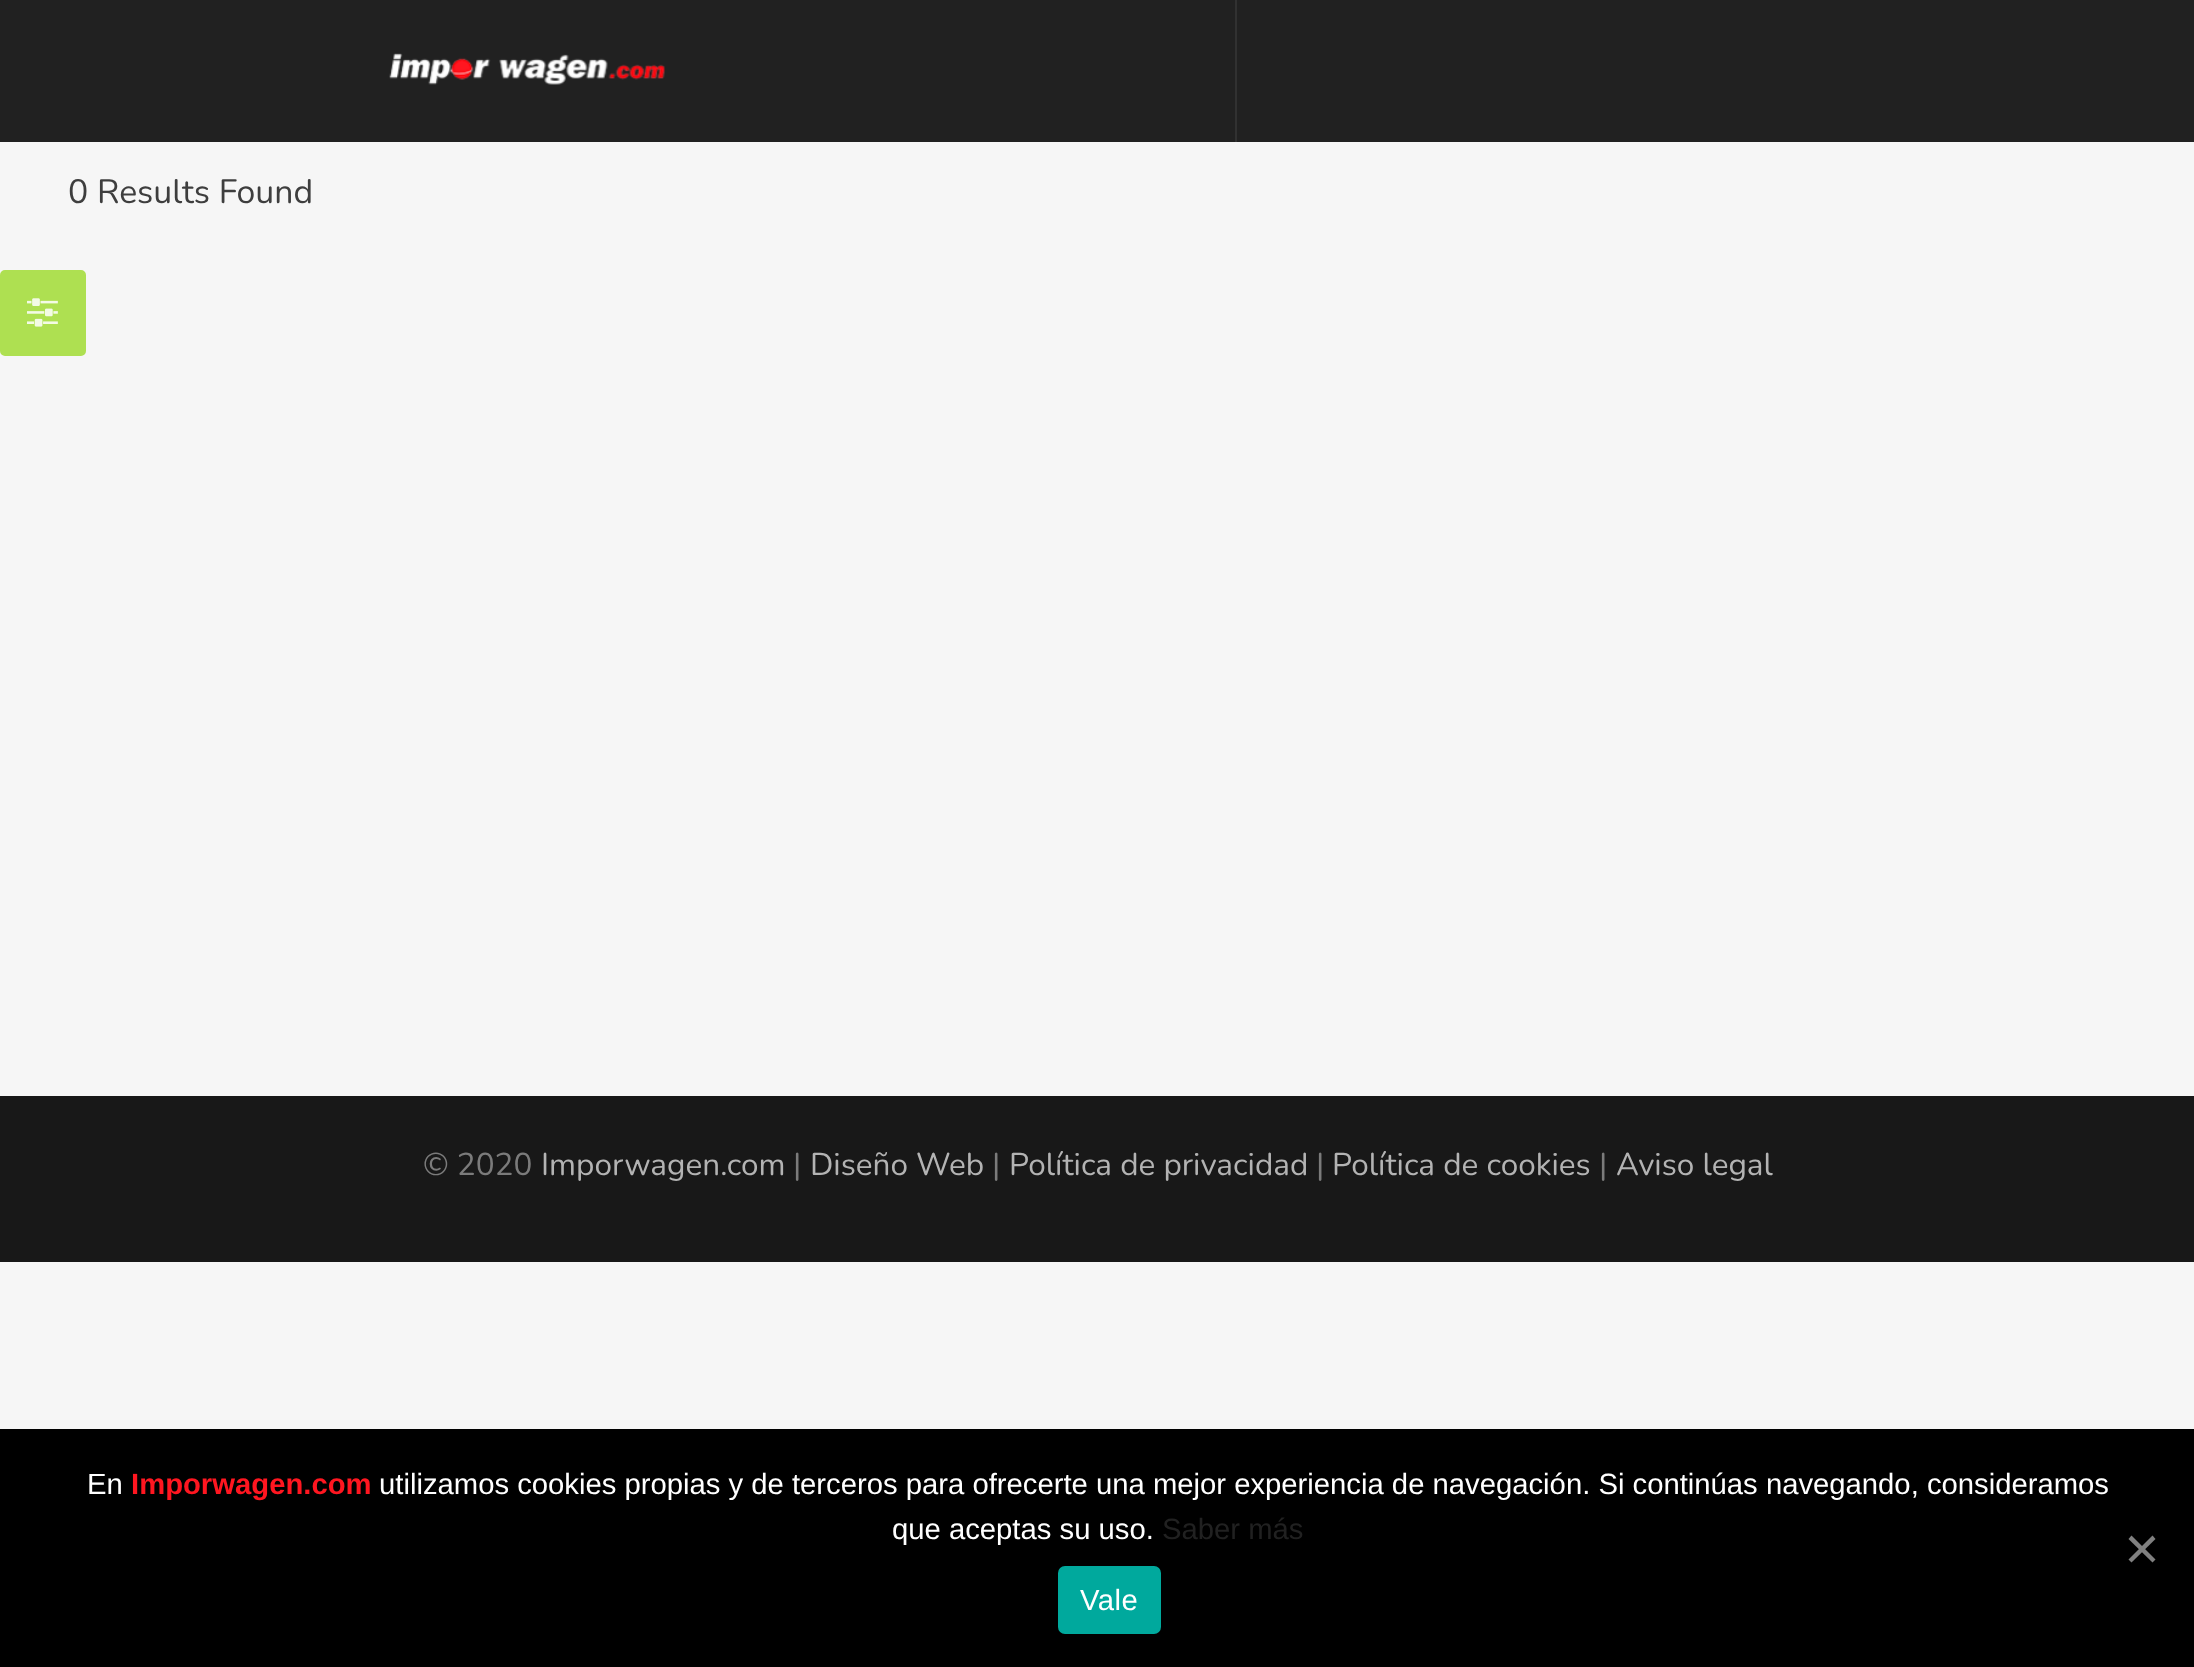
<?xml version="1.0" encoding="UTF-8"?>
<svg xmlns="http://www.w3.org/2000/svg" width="2194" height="1667">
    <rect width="100%" height="100%" fill="#F6F6F6"/>
    <rect x="0" y="0" width="2194" height="142" fill="#212121"/>
    <rect x="1235" y="0" width="2" height="142" fill="#313131"/>
    <image x="389" y="53" width="276" height="32" href="img_01.png"/>
    <text x="68" y="203" font-family="Nunito" font-size="33.75" fill="#3E3E3E">0 Results Found</text>
    <rect x="2.5" y="272.5" width="81" height="81" rx="2.5" fill="#AEE051" stroke="#AEE051" stroke-width="5"/>
    <image x="27" y="298" width="31" height="29" href="img_02.png"/>
    <rect x="0" y="1096" width="2194" height="166" fill="#181818"/>
    <text x="423" y="1175" font-family="Nunito" font-size="31.5" fill="#7B7B7B">© 2020</text>
    <text x="541" y="1175" font-family="Nunito" font-size="31.5" fill="#B3B3B3">Imporwagen.com</text>
    <text x="793" y="1175" font-family="Nunito" font-size="31.5" fill="#7B7B7B">|</text>
    <text x="810" y="1175" font-family="Nunito" font-size="31.5" fill="#B3B3B3">Diseño Web</text>
    <text x="992" y="1175" font-family="Nunito" font-size="31.5" fill="#7B7B7B">|</text>
    <text x="1009" y="1175" font-family="Nunito" font-size="31.5" fill="#B3B3B3">Política de privacidad</text>
    <text x="1316" y="1175" font-family="Nunito" font-size="31.5" fill="#7B7B7B">|</text>
    <text x="1332" y="1175" font-family="Nunito" font-size="31.5" fill="#B3B3B3">Política de cookies</text>
    <text x="1599" y="1175" font-family="Nunito" font-size="31.5" fill="#7B7B7B">|</text>
    <text x="1616" y="1175" font-family="Nunito" font-size="31.5" fill="#B3B3B3">Aviso legal</text>
    <rect x="0" y="1429" width="2194" height="238" fill="#000000"/>
    <text x="87" y="1494" font-family="Liberation Sans" font-size="29.25" fill="#FFFFFF">En</text>
    <text x="131" y="1494" font-family="Liberation Sans" font-size="29.25" font-weight="700" fill="#FF1620">Imporwagen.com</text>
    <text x="379" y="1494" font-family="Liberation Sans" font-size="29.25" fill="#FFFFFF">utilizamos cookies propias y de terceros para ofrecerte una mejor experiencia de navegación. Si continúas navegando, consideramos</text>
    <text x="892" y="1539" font-family="Liberation Sans" font-size="29.25" fill="#FFFFFF">que aceptas su uso.</text>
    <text x="1162" y="1539" font-family="Liberation Sans" font-size="29.25" fill="#212121">Saber más</text>
    <path d="M 2152.5 1535.5 L 2155.5 1539 L 2131.5 1562.5 L 2128.5 1559.5 Z" fill="#808080"/>
    <path d="M 2128.5 1539 L 2131.5 1535.5 L 2155.5 1559.5 L 2152.5 1562.5 Z" fill="#808080"/>
    <rect x="1058" y="1566" width="103" height="68" rx="7" fill="#00A99D"/>
    <text x="1080" y="1610" font-family="Liberation Sans" font-size="29.25" letter-spacing="0.5" fill="#FFFFFF">Vale</text>
</svg>
